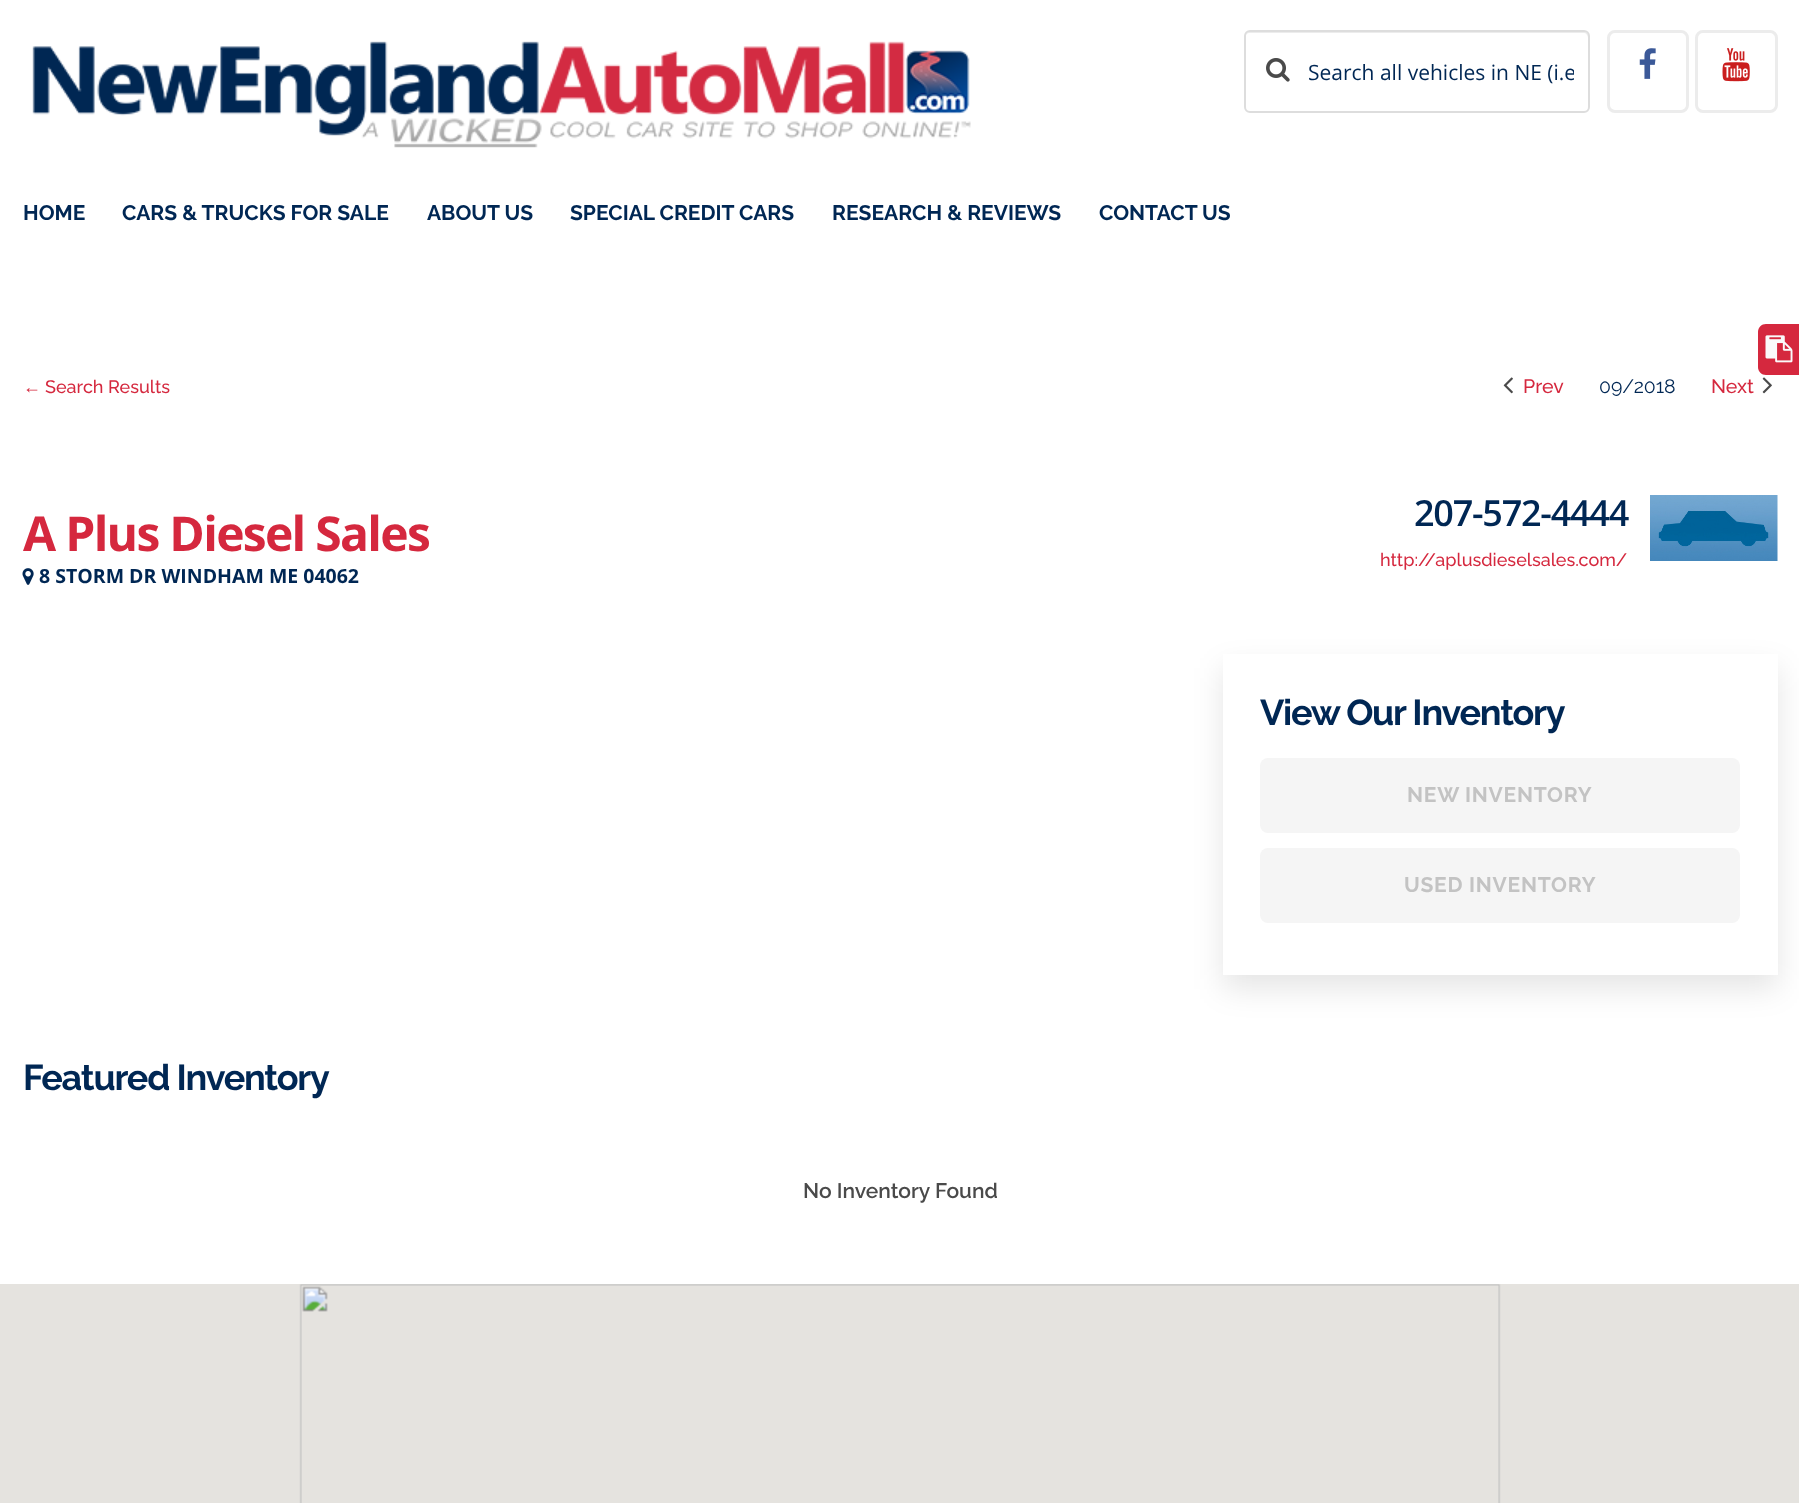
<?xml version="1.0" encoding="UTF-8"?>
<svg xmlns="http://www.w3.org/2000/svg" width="1799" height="1503">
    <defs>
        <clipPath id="clip1"><rect x="1308" y="57" width="266" height="29"/></clipPath>
        <filter id="blur1" x="-50%" y="-200%" width="200%" height="500%"><feGaussianBlur stdDeviation="15"/></filter>
    </defs>
    <rect width="100%" height="100%" fill="#FFFFFF"/>
    <image x="32" y="41" width="939" height="107" href="img_01.png"/>
    <path d="M 1250 33 H 1584 C 1586 33 1588 35 1588 38 V 109 C 1589 108 1589 107 1589 106 V 37 C 1589 34 1587 32 1584 32 H 1250 C 1247 32 1245 34 1245 37 V 38 C 1245 35 1247 33 1250 33 Z" fill="#ECECEC"/>
    <rect x="1245" y="31" width="344" height="81" rx="5" fill="none" stroke="#DDDDDD" stroke-width="2"/>
    <image x="1266" y="58" width="24" height="24" href="img_02.png"/>
    <g clip-path="url(#clip1)">
        <text x="1308" y="80" font-family="Open Sans" font-size="21" fill="#002754">Search all vehicles in NE (i.e</text>
    </g>
    <rect x="1608.5" y="31.5" width="79" height="80" rx="6.5" fill="none" stroke="#ECECEC" stroke-width="3"/>
    <image x="1639" y="48" width="17" height="31" href="img_03.png"/>
    <rect x="1696.5" y="31.5" width="80" height="80" rx="6.5" fill="none" stroke="#ECECEC" stroke-width="3"/>
    <image x="1722" y="48" width="28" height="34" href="img_04.png"/>
    <text x="23" y="220" font-family="Raleway" font-size="21" font-weight="100" fill="#002754">HOME</text>
    <text x="122" y="220" font-family="Raleway" font-size="21" font-weight="100" fill="#002754">CARS &amp; TRUCKS FOR SALE</text>
    <text x="427" y="220" font-family="Raleway" font-size="21" font-weight="100" fill="#002754">ABOUT US</text>
    <text x="570" y="220" font-family="Raleway" font-size="21" font-weight="100" fill="#002754">SPECIAL CREDIT CARS</text>
    <text x="832" y="220" font-family="Raleway" font-size="21" font-weight="100" fill="#002754">RESEARCH &amp; REVIEWS</text>
    <text x="1099" y="220" font-family="Raleway" font-size="21" font-weight="100" fill="#002754">CONTACT US</text>
    <path d="M 1766 324 H 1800 V 375 H 1766 C 1761.5 375 1758 371.5 1758 367 V 332 C 1758 327.5 1761.5 324 1766 324 Z" fill="#D5283E"/>
    <image x="1765" y="335" width="28" height="28" href="img_05.png"/>
    <text x="23" y="393" font-family="Liberation Sans" font-size="18" fill="#D5283E">←</text>
    <text x="45" y="393" font-family="Raleway" font-size="18" font-weight="500" fill="#D5283E">Search Results</text>
    <image x="1503" y="377" width="10" height="17" href="img_06.png"/>
    <text x="1523" y="393" font-family="Raleway" font-size="19.5" font-weight="500" fill="#D5283E">Prev</text>
    <text x="1599" y="393" font-family="Raleway" font-size="19.5" fill="#002754">09/2018</text>
    <text x="1711" y="393" font-family="Raleway" font-size="19.5" font-weight="500" fill="#D5283E">Next</text>
    <image x="1762" y="377" width="10" height="17" href="img_07.png"/>
    <text x="23" y="551" font-family="Open Sans" font-size="48" font-weight="700" letter-spacing="-1.7" fill="#D5283E">A Plus Diesel Sales</text>
    <image x="22" y="568" width="12" height="17" href="img_08.png"/>
    <text x="39" y="583" font-family="Open Sans" font-size="19.5" font-weight="700" fill="#002754">8 STORM DR WINDHAM ME 04062</text>
    <text x="1414" y="526" font-family="Open Sans" font-size="36" font-weight="600" letter-spacing="-1.25" fill="#002754">207-572-4444</text>
    <text x="1380" y="566" font-family="Raleway" font-size="18" font-weight="500" fill="#D5283E">http://aplusdieselsales.com/</text>
    <image x="1650" y="495" width="128" height="66" href="img_09.png"/>
    <rect x="1223" y="668" width="555" height="321" fill="#000000" fill-opacity="0.1" filter="url(#blur1)"/>
    <rect x="1223" y="654" width="555" height="321" fill="#FFFFFF"/>
    <text x="1260" y="725" font-family="Raleway" font-size="36" font-weight="100" letter-spacing="-1.25" fill="#002754">View Our Inventory</text>
    <rect x="1260" y="758" width="480" height="75" rx="8" fill="#F5F5F5"/>
    <text x="1407" y="802" font-family="Raleway" font-size="21" font-weight="100" letter-spacing="0.75" fill="#C3C3C3">NEW INVENTORY</text>
    <rect x="1260" y="848" width="480" height="75" rx="8" fill="#F5F5F5"/>
    <text x="1404" y="892" font-family="Raleway" font-size="21" font-weight="100" letter-spacing="0.75" fill="#C3C3C3">USED INVENTORY</text>
    <text x="23" y="1090" font-family="Raleway" font-size="36" font-weight="100" letter-spacing="-1.25" fill="#002754">Featured Inventory</text>
    <text x="803" y="1198" font-family="Raleway" font-size="21" font-weight="600" fill="#4A4A4A">No Inventory Found</text>
    <image x="0" y="1284" width="1799" height="219" href="img_10.png"/>
</svg>
